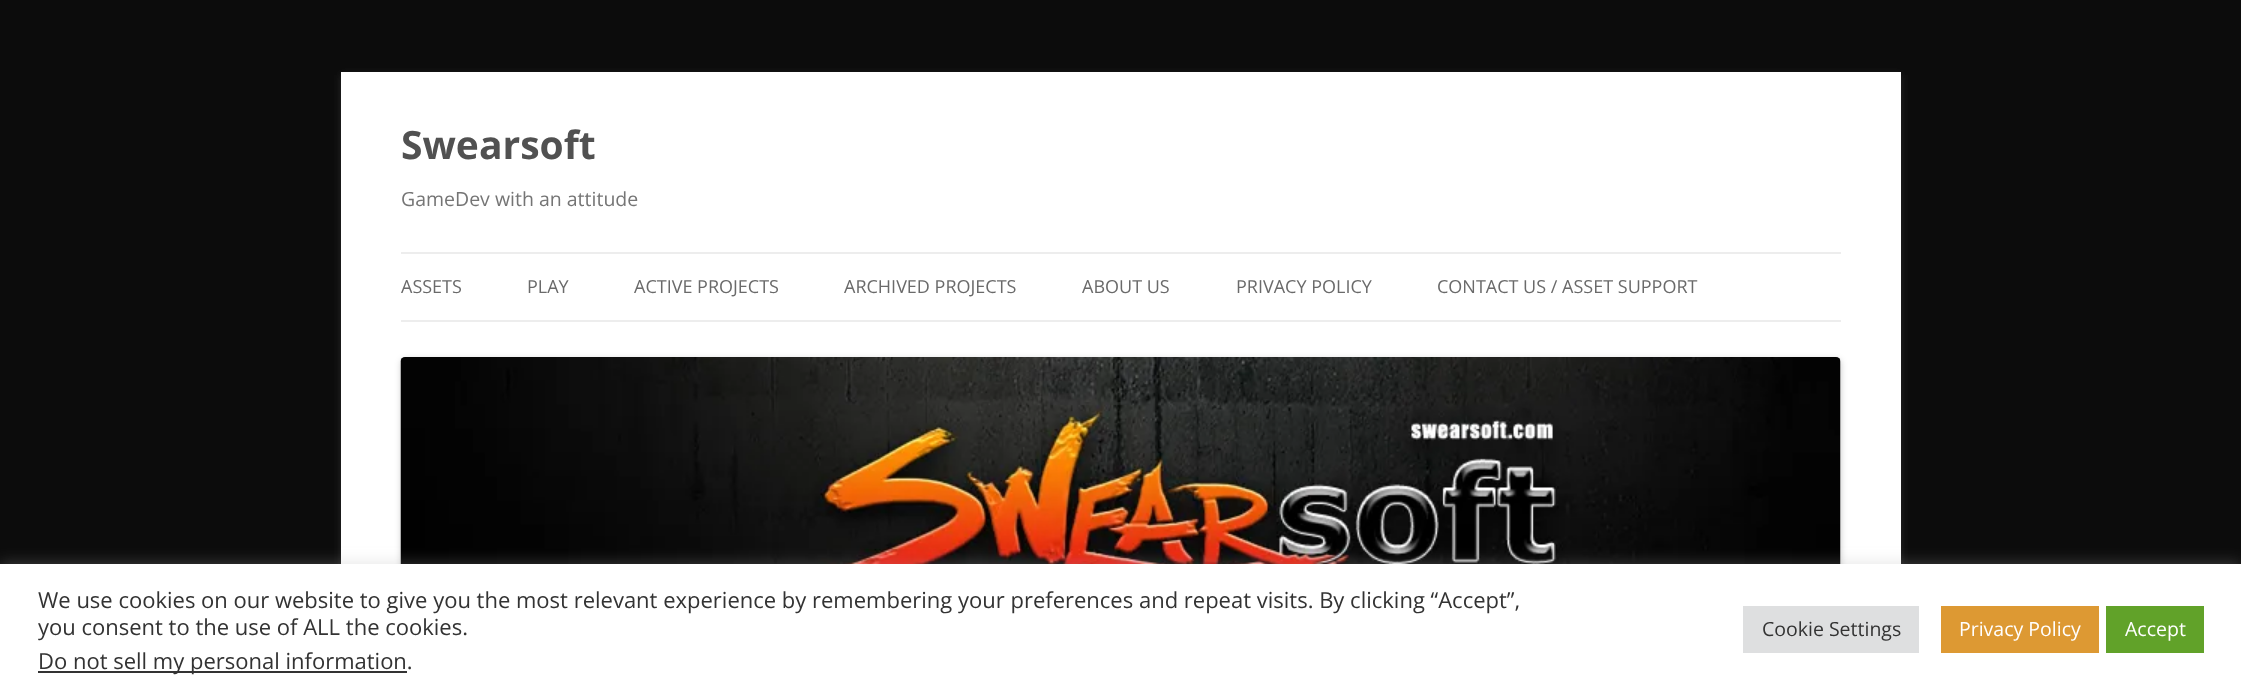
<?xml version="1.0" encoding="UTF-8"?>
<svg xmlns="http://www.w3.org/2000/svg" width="2241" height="694">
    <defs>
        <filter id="blur1" x="-50%" y="-200%" width="200%" height="500%"><feGaussianBlur stdDeviation="4.5"/></filter>
        <filter id="blur2" x="-50%" y="-200%" width="200%" height="500%"><feGaussianBlur stdDeviation="3"/></filter>
        <filter id="blur3" x="-50%" y="-200%" width="200%" height="500%"><feGaussianBlur stdDeviation="7.5"/></filter>
    </defs>
    <rect width="100%" height="100%" fill="#0C0C0C"/>
    <rect x="341" y="75" width="1560" height="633" fill="#646464" fill-opacity="0.3" filter="url(#blur1)"/>
    <rect x="341" y="72" width="1560" height="492" fill="#FFFFFF"/>
    <text x="401" y="159" font-family="Open Sans" font-size="39" font-weight="700" fill="#515151">Swearsoft</text>
    <text x="401" y="206" font-family="Open Sans" font-size="19.5" fill="#757575">GameDev with an attitude</text>
    <rect x="401" y="252" width="1440" height="2" fill="#EDEDED"/>
    <rect x="401" y="320" width="1440" height="2" fill="#EDEDED"/>
    <text x="401" y="293" font-family="Open Sans" font-size="18" fill="#6A6A6A">ASSETS</text>
    <text x="527" y="293" font-family="Open Sans" font-size="18" fill="#6A6A6A">PLAY</text>
    <text x="634" y="293" font-family="Open Sans" font-size="18" fill="#6A6A6A">ACTIVE PROJECTS</text>
    <text x="844" y="293" font-family="Open Sans" font-size="18" fill="#6A6A6A">ARCHIVED PROJECTS</text>
    <text x="1082" y="293" font-family="Open Sans" font-size="18" fill="#6A6A6A">ABOUT US</text>
    <text x="1236" y="293" font-family="Open Sans" font-size="18" fill="#6A6A6A">PRIVACY POLICY</text>
    <text x="1437" y="293" font-family="Open Sans" font-size="18" fill="#6A6A6A">CONTACT US / ASSET SUPPORT</text>
    <rect x="401" y="359" width="1440" height="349" rx="5" fill="#000000" fill-opacity="0.2" filter="url(#blur2)"/>
    <image x="400" y="357" width="1441" height="207" href="img_01.png"/>
    <rect x="0" y="563" width="2241" height="130" fill="#ACABAB" fill-opacity="0.3" filter="url(#blur3)"/>
    <rect x="0" y="564" width="2241" height="130" fill="#FFFFFF"/>
    <text font-family="Open Sans" font-size="22" fill="#333333">
        <tspan x="38" y="608">We use cookies on our website to give you the most relevant experience by remembering your preferences and repeat visits. By clicking “Accept”,</tspan>
        <tspan x="38" y="635">you consent to the use of ALL the cookies.</tspan>
    </text>
    <rect x="38" y="671" width="369" height="2" fill="#333333"/>
    <text x="38" y="669" font-family="Open Sans" font-size="22" fill="#333333">Do not sell my personal information.</text>
    <rect x="1743" y="606" width="176" height="47" fill="#DEDFE0"/>
    <text x="1762" y="636" font-family="Open Sans" font-size="19.5" fill="#333333">Cookie Settings</text>
    <rect x="1941" y="606" width="158" height="47" fill="#DD9933"/>
    <text x="1959" y="636" font-family="Open Sans" font-size="19.5" fill="#FFFFFF">Privacy Policy</text>
    <rect x="2106" y="606" width="98" height="47" fill="#61A229"/>
    <text x="2125" y="636" font-family="Open Sans" font-size="19.5" fill="#FFFFFF">Accept</text>
</svg>
